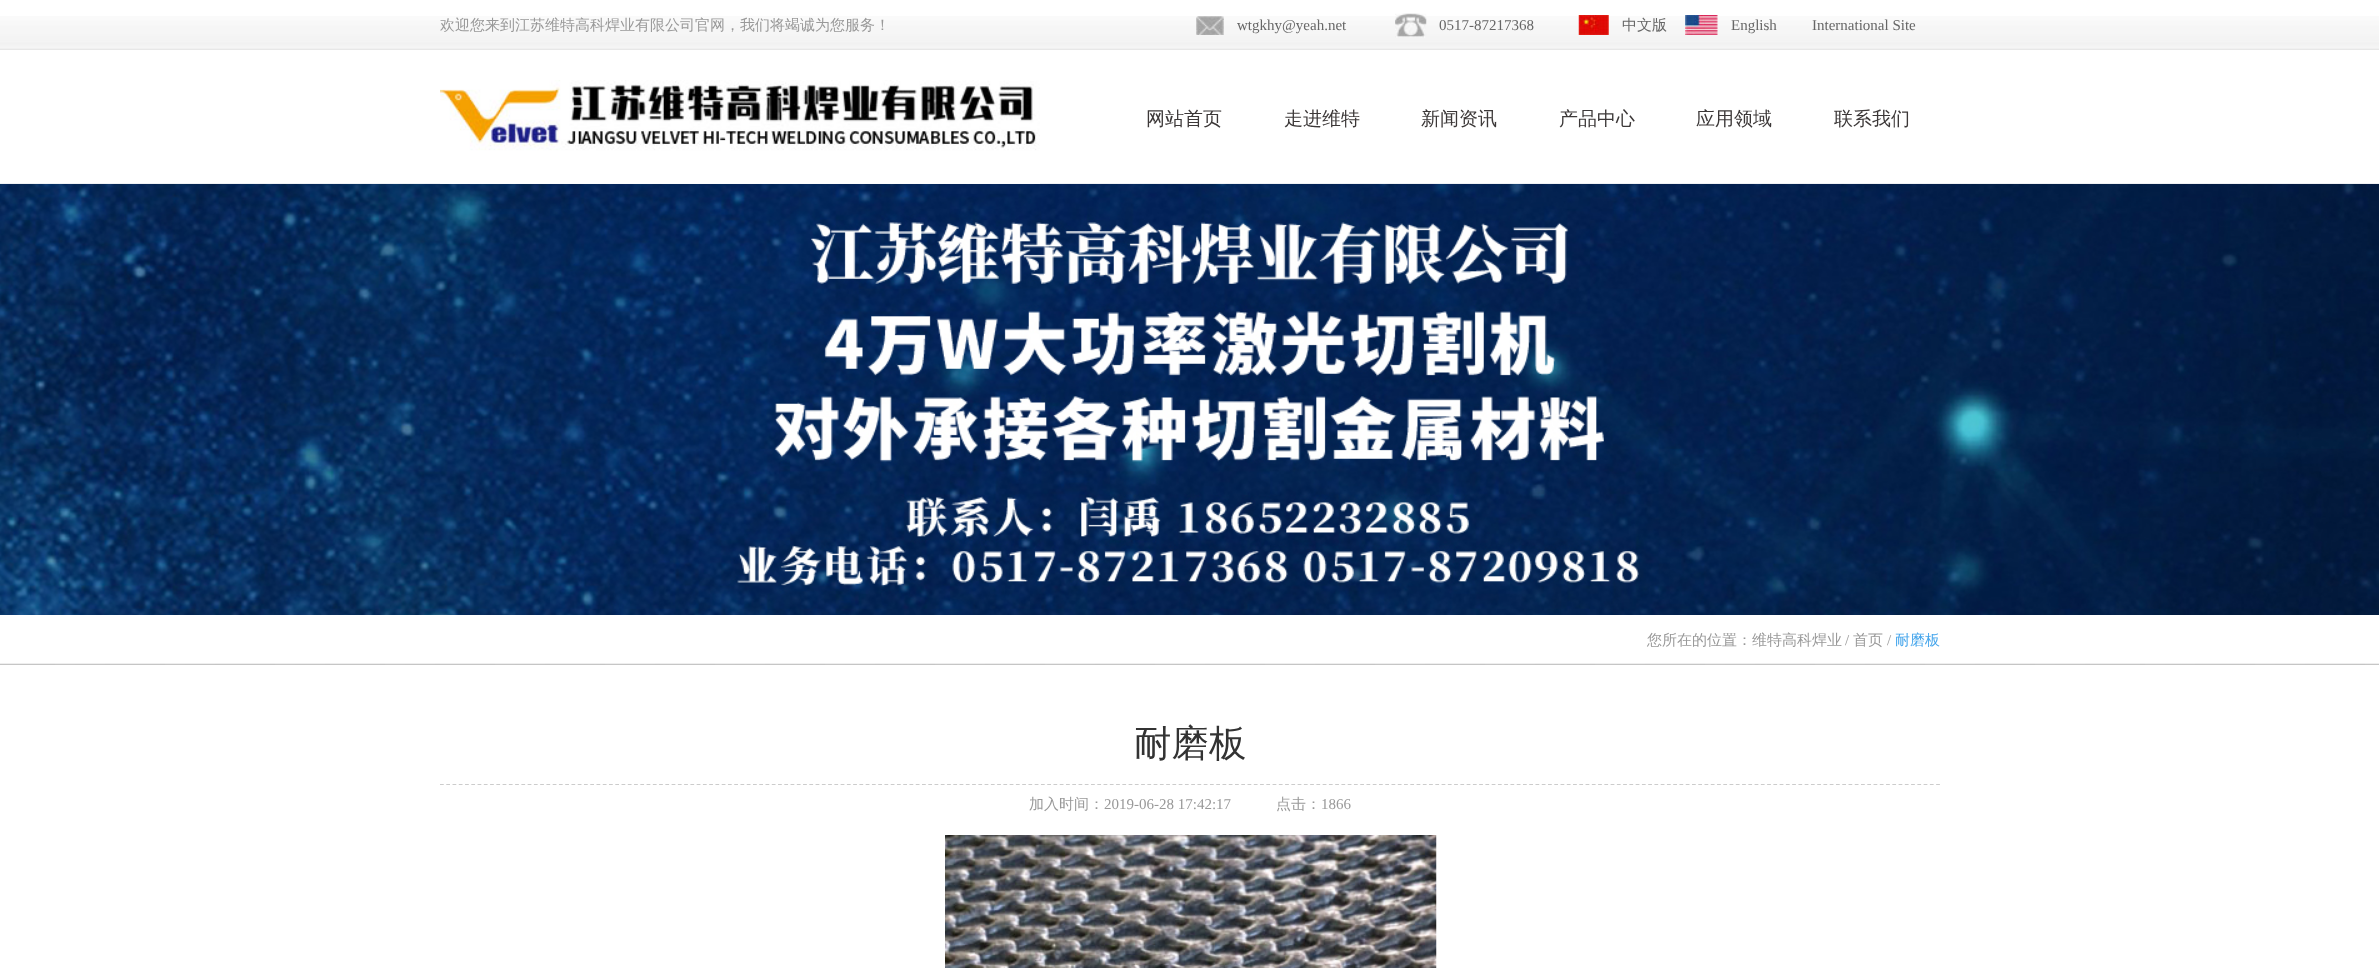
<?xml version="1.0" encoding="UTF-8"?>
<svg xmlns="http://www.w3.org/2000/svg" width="2379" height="968">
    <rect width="100%" height="100%" fill="#FFFFFF"/>
    <image x="0" y="16" width="2379" height="34" href="img_01.png"/>
    <text x="440" y="30" font-family="WenQuanYi Zen Hei" font-size="15" font-weight="500" fill="#999999">欢迎您来到江苏维特高科焊业有限公司官网，我们将竭诚为您服务！</text>
    <image x="1196" y="16" width="28" height="19" href="img_02.png"/>
    <text x="1237" y="30" font-family="Liberation Serif" font-size="15" fill="#666666">wtgkhy@yeah.net</text>
    <image x="1395" y="13" width="32" height="25" href="img_03.png"/>
    <text x="1439" y="30" font-family="Liberation Serif" font-size="15" fill="#666666">0517-87217368</text>
    <image x="1578" y="15" width="31" height="20" href="img_04.png"/>
    <text x="1622" y="30" font-family="WenQuanYi Zen Hei" font-size="15" font-weight="500" fill="#666666">中文版</text>
    <image x="1685" y="15" width="33" height="20" href="img_05.png"/>
    <text x="1731" y="30" font-family="Liberation Serif" font-size="15" fill="#666666">English</text>
    <text x="1812" y="30" font-family="Liberation Serif" font-size="15" fill="#666666">International Site</text>
    <image x="0" y="183" width="2379" height="432" href="img_07.png"/>
    <image x="440" y="80" width="600" height="104" href="img_06.png"/>
    <text x="1146" y="125" font-family="WenQuanYi Zen Hei" font-size="19" font-weight="500" fill="#3C3838">网站首页</text>
    <text x="1284" y="125" font-family="WenQuanYi Zen Hei" font-size="19" font-weight="500" fill="#3C3838">走进维特</text>
    <text x="1421" y="125" font-family="WenQuanYi Zen Hei" font-size="19" font-weight="500" fill="#3C3838">新闻资讯</text>
    <text x="1559" y="125" font-family="WenQuanYi Zen Hei" font-size="19" font-weight="500" fill="#3C3838">产品中心</text>
    <text x="1696" y="125" font-family="WenQuanYi Zen Hei" font-size="19" font-weight="500" fill="#3C3838">应用领域</text>
    <text x="1834" y="125" font-family="WenQuanYi Zen Hei" font-size="19" font-weight="500" fill="#3C3838">联系我们</text>
    <image x="0" y="663" width="2379" height="2" href="img_08.png"/>
    <text x="1647" y="645" font-family="WenQuanYi Zen Hei" font-size="15" font-weight="500" fill="#999999">您所在的位置：维特高科焊业</text>
    <text x="1845" y="645" font-family="Liberation Serif" font-size="15" fill="#999999">/</text>
    <text x="1853" y="645" font-family="WenQuanYi Zen Hei" font-size="15" font-weight="500" fill="#999999">首页</text>
    <text x="1887" y="645" font-family="Liberation Serif" font-size="15" fill="#999999">/</text>
    <text x="1895" y="645" font-family="WenQuanYi Zen Hei" font-size="15" font-weight="500" fill="#46A6EC">耐磨板</text>
    <path d="M 440 784.5 H 1940" fill="none" stroke="#CCCCCC" stroke-width="1.2" stroke-dasharray="3.75 2.51"/>
    <text x="1134" y="756" font-family="WenQuanYi Zen Hei" font-size="37.5" font-weight="500" fill="#333333">耐磨板</text>
    <text x="1029" y="809" font-family="WenQuanYi Zen Hei" font-size="15" font-weight="500" fill="#999999">加入时间：</text>
    <text x="1104" y="809" font-family="Liberation Serif" font-size="15" fill="#999999">2019-06-28 17:42:17</text>
    <text x="1276" y="809" font-family="WenQuanYi Zen Hei" font-size="15" font-weight="500" fill="#999999">点击：</text>
    <text x="1321" y="809" font-family="Liberation Serif" font-size="15" fill="#999999">1866</text>
    <image x="945" y="835" width="492" height="133" href="img_09.png"/>
</svg>
